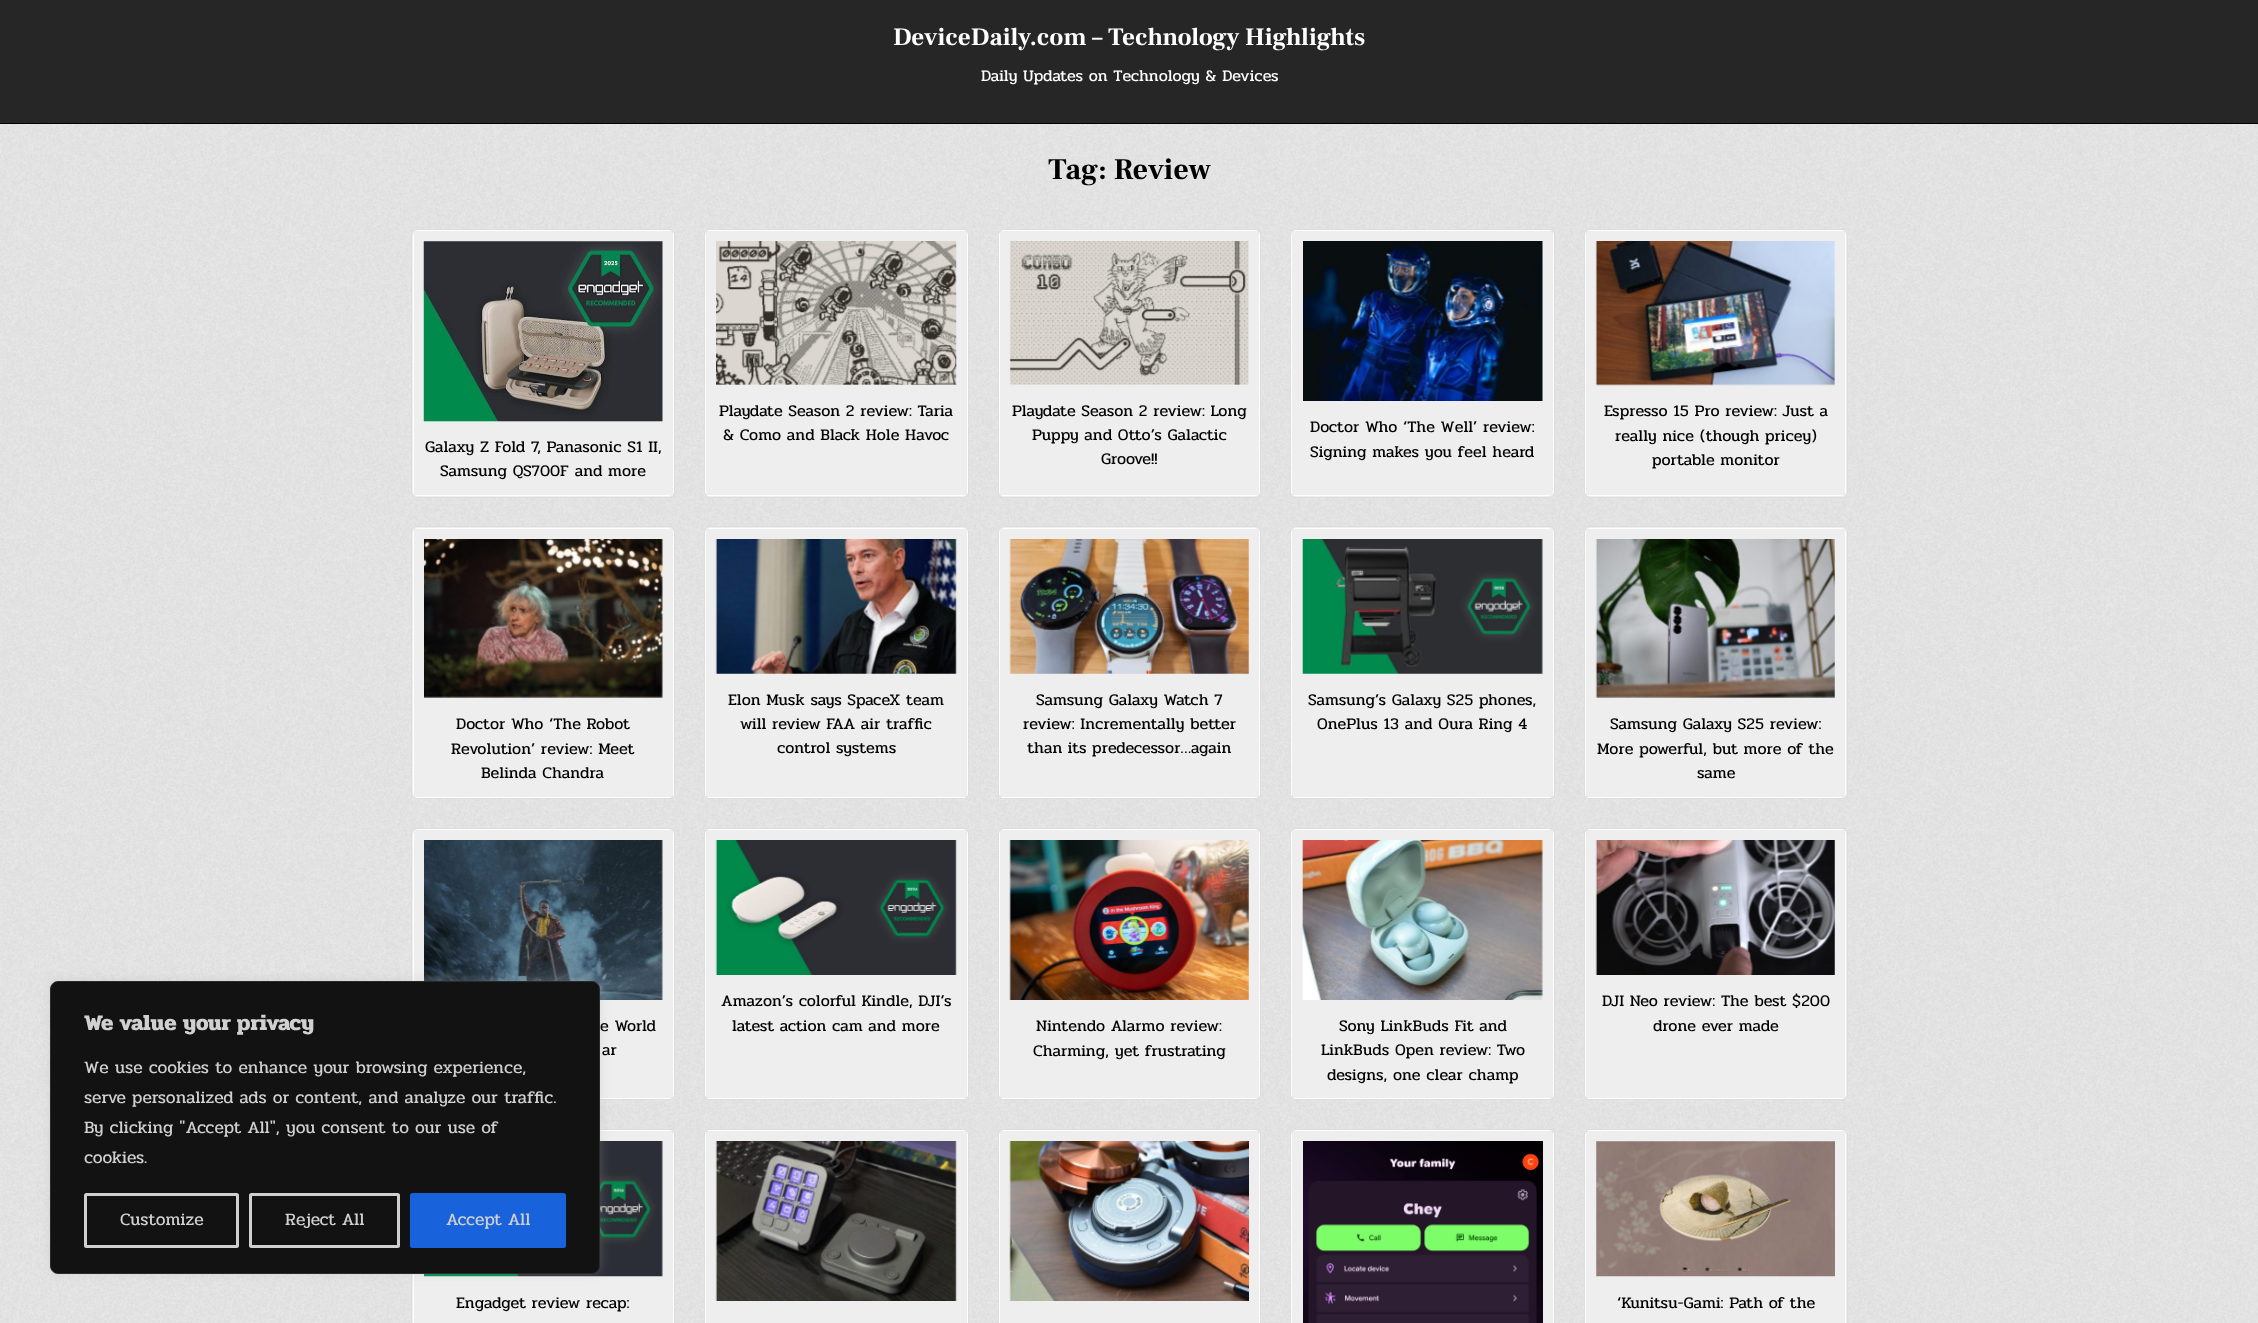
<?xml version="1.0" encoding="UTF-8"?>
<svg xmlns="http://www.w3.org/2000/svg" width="2258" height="1323">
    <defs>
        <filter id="blur1" x="-50%" y="-200%" width="200%" height="500%"><feGaussianBlur stdDeviation="6"/></filter>
    </defs>
    <rect width="100%" height="100%" fill="#FFFFFF"/>
    <image x="0" y="124" width="2258" height="1199" href="img_01.png"/>
    <rect x="0" y="0" width="2258" height="123" fill="#262626"/>
    <rect x="0" y="123" width="2258" height="1" fill="#000000"/>
    <text x="893" y="45" font-family="Frank Ruhl Libre" font-size="25" font-weight="700" fill="#FFFFFF">DeviceDaily.com – Technology Highlights</text>
    <text x="981" y="81" font-family="Pridi" font-size="16.25" fill="#FFFFFF">Daily Updates on Technology &amp; Devices</text>
    <rect x="411.5" y="828.5" width="263" height="271" rx="5.5" fill="#EEEEEE" stroke="#DDDDDD"/>
    <path d="M 413 834 V 1094 C 413 1095 413 1096 414 1097 V 831 Z M 418 829 L 415 830 H 672 L 669 829 Z M 674 834 L 673 831 V 1097 C 674 1096 674 1095 674 1094 Z M 669 1099 L 672 1098 H 415 C 416 1099 417 1099 418 1099 Z" fill="#FFFFFF" fill-rule="evenodd"/>
    <image x="424" y="840" width="239" height="160" href="img_14.png"/>
    <rect x="411.5" y="1129.5" width="263" height="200" rx="5.5" fill="#EEEEEE" stroke="#DDDDDD"/>
    <path d="M 413 1135 V 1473 C 413 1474 413 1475 414 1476 V 1132 Z M 418 1130 L 415 1131 H 672 L 669 1130 Z M 674 1135 L 673 1132 V 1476 C 674 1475 674 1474 674 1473 Z M 669 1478 L 672 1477 H 415 C 416 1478 417 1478 418 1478 Z" fill="#FFFFFF" fill-rule="evenodd"/>
    <image x="424" y="1141" width="239" height="136" href="img_17.png"/>
    <rect x="50" y="980" width="550" height="293" rx="8" fill="#ACABAB" fill-opacity="0.3" filter="url(#blur1)"/>
    <rect x="50.5" y="981.5" width="549" height="292" rx="7.5" fill="#121212" stroke="#2A2A2A"/>
    <text x="84" y="1030" font-family="Pridi" font-size="22.5" font-weight="700" fill="#D0D0D0">We value your privacy</text>
    <text font-family="Pridi" font-size="17.5" fill="#D0D0D0">
        <tspan x="84" y="1073">We use cookies to enhance your browsing experience,</tspan>
        <tspan x="84" y="1103">serve personalized ads or content, and analyze our traffic.</tspan>
        <tspan x="84" y="1133">By clicking "Accept All", you consent to our use of</tspan>
        <tspan x="84" y="1163">cookies.</tspan>
    </text>
    <rect x="85.5" y="1194.5" width="152" height="52" rx="1" fill="none" stroke="#D0D0D0" stroke-width="3"/>
    <text x="120" y="1225" font-family="Pridi" font-size="17.5" fill="#D0D0D0">Customize</text>
    <rect x="250.5" y="1194.5" width="148" height="52" rx="1" fill="none" stroke="#D0D0D0" stroke-width="3"/>
    <text x="285" y="1225" font-family="Pridi" font-size="17.5" fill="#D0D0D0">Reject All</text>
    <rect x="411.5" y="1194.5" width="153" height="52" rx="1" fill="#1863DC" stroke="#1863DC" stroke-width="3"/>
    <text x="446" y="1225" font-family="Pridi" font-size="17.5" fill="#D0D0D0">Accept All</text>
    <text x="1048" y="179" font-family="Frank Ruhl Libre" font-size="30" font-weight="700" fill="#000000">Tag: Review</text>
    <rect x="411.5" y="229.5" width="263" height="268" rx="5.5" fill="#EEEEEE" stroke="#DDDDDD"/>
    <path d="M 413 235 V 491 C 413 492 413 493 414 494 V 232 Z M 418 230 L 415 231 H 672 L 669 230 Z M 674 235 L 673 232 V 494 C 674 493 674 492 674 491 Z M 669 496 L 672 495 H 415 C 416 496 417 496 418 496 Z" fill="#FFFFFF" fill-rule="evenodd"/>
    <image x="423" y="241" width="240" height="181" href="img_02.png"/>
    <text x="425" y="452" font-family="Pridi" font-size="16.25" fill="#000000">Galaxy Z Fold 7, Panasonic S1 II,</text>
    <text x="440" y="476" font-family="Pridi" font-size="16.25" fill="#000000">Samsung QS700F and more</text>
    <rect x="704.5" y="229.5" width="264" height="268" rx="5.5" fill="#EEEEEE" stroke="#DDDDDD"/>
    <path d="M 705 235 V 491 C 705 492 705 493 706 494 V 232 Z M 710 230 L 707 231 H 966 L 963 230 Z M 968 235 L 967 232 V 494 C 968 493 968 492 968 491 Z M 963 496 L 966 495 H 707 C 708 496 709 496 710 496 Z" fill="#FFFFFF" fill-rule="evenodd"/>
    <image x="716" y="241" width="241" height="144" href="img_03.png"/>
    <text x="719" y="416" font-family="Pridi" font-size="16.25" fill="#000000">Playdate Season 2 review: Taria</text>
    <text x="723" y="440" font-family="Pridi" font-size="16.25" fill="#000000">&amp; Como and Black Hole Havoc</text>
    <rect x="998.5" y="229.5" width="262" height="268" rx="5.5" fill="#EEEEEE" stroke="#DDDDDD"/>
    <path d="M 999 235 V 491 C 999 492 999 493 1000 494 V 232 Z M 1004 230 L 1001 231 H 1258 L 1255 230 Z M 1260 235 L 1259 232 V 494 C 1260 493 1260 492 1260 491 Z M 1255 496 L 1258 495 H 1001 C 1002 496 1003 496 1004 496 Z" fill="#FFFFFF" fill-rule="evenodd"/>
    <image x="1009" y="241" width="240" height="144" href="img_04.png"/>
    <text x="1012" y="416" font-family="Pridi" font-size="16.25" fill="#000000">Playdate Season 2 review: Long</text>
    <text x="1032" y="440" font-family="Pridi" font-size="16.25" fill="#000000">Puppy and Otto’s Galactic</text>
    <text x="1101" y="464" font-family="Pridi" font-size="16.25" fill="#000000">Groove!!</text>
    <rect x="1290.5" y="229.5" width="264" height="268" rx="5.5" fill="#EEEEEE" stroke="#DDDDDD"/>
    <path d="M 1291 235 V 491 C 1291 492 1291 493 1292 494 V 232 Z M 1296 230 L 1293 231 H 1552 L 1549 230 Z M 1554 235 L 1553 232 V 494 C 1554 493 1554 492 1554 491 Z M 1549 496 L 1552 495 H 1293 C 1294 496 1295 496 1296 496 Z" fill="#FFFFFF" fill-rule="evenodd"/>
    <image x="1303" y="241" width="240" height="160" href="img_05.png"/>
    <text font-family="Pridi" font-size="16.25" fill="#000000">
        <tspan x="1310" y="432">Doctor Who ‘The Well’ review:</tspan>
        <tspan x="1310" y="457">Signing makes you feel heard</tspan>
    </text>
    <rect x="1584.5" y="229.5" width="263" height="268" rx="5.5" fill="#EEEEEE" stroke="#DDDDDD"/>
    <path d="M 1585 235 V 491 C 1585 492 1585 493 1586 494 V 232 Z M 1590 230 L 1587 231 H 1844 L 1841 230 Z M 1846 235 L 1845 232 V 494 C 1846 493 1846 492 1846 491 Z M 1841 496 L 1844 495 H 1587 C 1588 496 1589 496 1590 496 Z" fill="#FFFFFF" fill-rule="evenodd"/>
    <image x="1595" y="241" width="240" height="145" href="img_06.png"/>
    <text x="1604" y="416" font-family="Pridi" font-size="16.25" fill="#000000">Espresso 15 Pro review: Just a</text>
    <text x="1615" y="441" font-family="Pridi" font-size="16.25" fill="#000000">really nice (though pricey)</text>
    <text x="1652" y="465" font-family="Pridi" font-size="16.25" fill="#000000">portable monitor</text>
    <rect x="704.5" y="526.5" width="264" height="272" rx="5.5" fill="#EEEEEE" stroke="#DDDDDD"/>
    <path d="M 705 533 V 793 C 705 794 705 795 706 796 V 530 Z M 710 528 L 707 529 H 966 L 963 528 Z M 968 533 L 967 530 V 796 C 968 795 968 794 968 793 Z M 963 798 L 966 797 H 707 C 708 798 709 798 710 798 Z" fill="#FFFFFF" fill-rule="evenodd"/>
    <image x="715" y="539" width="242" height="135" href="img_07.png"/>
    <text x="728" y="705" font-family="Pridi" font-size="16.25" fill="#000000">Elon Musk says SpaceX team</text>
    <text x="740" y="729" font-family="Pridi" font-size="16.25" fill="#000000">will review FAA air traffic</text>
    <text x="777" y="753" font-family="Pridi" font-size="16.25" fill="#000000">control systems</text>
    <rect x="998.5" y="526.5" width="262" height="272" rx="5.5" fill="#EEEEEE" stroke="#DDDDDD"/>
    <path d="M 999 533 V 793 C 999 794 999 795 1000 796 V 530 Z M 1004 528 L 1001 529 H 1258 L 1255 528 Z M 1260 533 L 1259 530 V 796 C 1260 795 1260 794 1260 793 Z M 1255 798 L 1258 797 H 1001 C 1002 798 1003 798 1004 798 Z" fill="#FFFFFF" fill-rule="evenodd"/>
    <image x="1009" y="539" width="240" height="135" href="img_08.png"/>
    <text x="1036" y="705" font-family="Pridi" font-size="16.25" fill="#000000">Samsung Galaxy Watch 7</text>
    <text x="1023" y="729" font-family="Pridi" font-size="16.25" fill="#000000">review: Incrementally better</text>
    <text x="1027" y="753" font-family="Pridi" font-size="16.25" fill="#000000">than its predecessor…again</text>
    <rect x="1290.5" y="526.5" width="264" height="272" rx="5.5" fill="#EEEEEE" stroke="#DDDDDD"/>
    <path d="M 1291 533 V 793 C 1291 794 1291 795 1292 796 V 530 Z M 1296 528 L 1293 529 H 1552 L 1549 528 Z M 1554 533 L 1553 530 V 796 C 1554 795 1554 794 1554 793 Z M 1549 798 L 1552 797 H 1293 C 1294 798 1295 798 1296 798 Z" fill="#FFFFFF" fill-rule="evenodd"/>
    <image x="1302" y="539" width="241" height="135" href="img_09.png"/>
    <text x="1308" y="705" font-family="Pridi" font-size="16.25" fill="#000000">Samsung’s Galaxy S25 phones,</text>
    <text x="1317" y="729" font-family="Pridi" font-size="16.25" fill="#000000">OnePlus 13 and Oura Ring 4</text>
    <rect x="411.5" y="526.5" width="263" height="272" rx="5.5" fill="#EEEEEE" stroke="#DDDDDD"/>
    <path d="M 413 533 V 793 C 413 794 413 795 414 796 V 530 Z M 418 528 L 415 529 H 672 L 669 528 Z M 674 533 L 673 530 V 796 C 674 795 674 794 674 793 Z M 669 798 L 672 797 H 415 C 416 798 417 798 418 798 Z" fill="#FFFFFF" fill-rule="evenodd"/>
    <image x="424" y="539" width="239" height="159" href="img_10.png"/>
    <text x="456" y="729" font-family="Pridi" font-size="16.25" fill="#000000">Doctor Who ‘The Robot</text>
    <text x="451" y="754" font-family="Pridi" font-size="16.25" fill="#000000">Revolution’ review: Meet</text>
    <text x="481" y="778" font-family="Pridi" font-size="16.25" fill="#000000">Belinda Chandra</text>
    <rect x="1584.5" y="526.5" width="263" height="272" rx="5.5" fill="#EEEEEE" stroke="#DDDDDD"/>
    <path d="M 1585 533 V 793 C 1585 794 1585 795 1586 796 V 530 Z M 1590 528 L 1587 529 H 1844 L 1841 528 Z M 1846 533 L 1845 530 V 796 C 1846 795 1846 794 1846 793 Z M 1841 798 L 1844 797 H 1587 C 1588 798 1589 798 1590 798 Z" fill="#FFFFFF" fill-rule="evenodd"/>
    <image x="1595" y="539" width="240" height="159" href="img_11.png"/>
    <text x="1610" y="729" font-family="Pridi" font-size="16.25" fill="#000000">Samsung Galaxy S25 review:</text>
    <text x="1597" y="754" font-family="Pridi" font-size="16.25" fill="#000000">More powerful, but more of the</text>
    <text x="1697" y="778" font-family="Pridi" font-size="16.25" fill="#000000">same</text>
    <rect x="704.5" y="828.5" width="264" height="271" rx="5.5" fill="#EEEEEE" stroke="#DDDDDD"/>
    <path d="M 705 834 V 1094 C 705 1095 705 1096 706 1097 V 831 Z M 710 829 L 707 830 H 966 L 963 829 Z M 968 834 L 967 831 V 1097 C 968 1096 968 1095 968 1094 Z M 963 1099 L 966 1098 H 707 C 708 1099 709 1099 710 1099 Z" fill="#FFFFFF" fill-rule="evenodd"/>
    <image x="715" y="840" width="242" height="135" href="img_12.png"/>
    <text x="721" y="1006" font-family="Pridi" font-size="16.25" fill="#000000">Amazon’s colorful Kindle, DJI’s</text>
    <text x="732" y="1031" font-family="Pridi" font-size="16.25" fill="#000000">latest action cam and more</text>
    <rect x="1584.5" y="828.5" width="263" height="271" rx="5.5" fill="#EEEEEE" stroke="#DDDDDD"/>
    <path d="M 1585 834 V 1094 C 1585 1095 1585 1096 1586 1097 V 831 Z M 1590 829 L 1587 830 H 1844 L 1841 829 Z M 1846 834 L 1845 831 V 1097 C 1846 1096 1846 1095 1846 1094 Z M 1841 1099 L 1844 1098 H 1587 C 1588 1099 1589 1099 1590 1099 Z" fill="#FFFFFF" fill-rule="evenodd"/>
    <image x="1595" y="840" width="240" height="135" href="img_13.png"/>
    <text x="1602" y="1006" font-family="Pridi" font-size="16.25" fill="#000000">DJI Neo review: The best $200</text>
    <text x="1653" y="1031" font-family="Pridi" font-size="16.25" fill="#000000">drone ever made</text>
    <text x="600" y="1031" font-family="Pridi" font-size="16.25" fill="#000000">e World</text>
    <text x="602" y="1055" font-family="Pridi" font-size="16.25" fill="#000000">ar</text>
    <rect x="998.5" y="828.5" width="262" height="271" rx="5.5" fill="#EEEEEE" stroke="#DDDDDD"/>
    <path d="M 999 834 V 1094 C 999 1095 999 1096 1000 1097 V 831 Z M 1004 829 L 1001 830 H 1258 L 1255 829 Z M 1260 834 L 1259 831 V 1097 C 1260 1096 1260 1095 1260 1094 Z M 1255 1099 L 1258 1098 H 1001 C 1002 1099 1003 1099 1004 1099 Z" fill="#FFFFFF" fill-rule="evenodd"/>
    <image x="1009" y="840" width="240" height="160" href="img_15.png"/>
    <text x="1036" y="1031" font-family="Pridi" font-size="16.25" fill="#000000">Nintendo Alarmo review:</text>
    <text x="1033" y="1056" font-family="Pridi" font-size="16.25" fill="#000000">Charming, yet frustrating</text>
    <rect x="1290.5" y="828.5" width="264" height="271" rx="5.5" fill="#EEEEEE" stroke="#DDDDDD"/>
    <path d="M 1291 834 V 1094 C 1291 1095 1291 1096 1292 1097 V 831 Z M 1296 829 L 1293 830 H 1552 L 1549 829 Z M 1554 834 L 1553 831 V 1097 C 1554 1096 1554 1095 1554 1094 Z M 1549 1099 L 1552 1098 H 1293 C 1294 1099 1295 1099 1296 1099 Z" fill="#FFFFFF" fill-rule="evenodd"/>
    <image x="1302" y="840" width="241" height="160" href="img_16.png"/>
    <text x="1339" y="1031" font-family="Pridi" font-size="16.25" fill="#000000">Sony LinkBuds Fit and</text>
    <text x="1321" y="1055" font-family="Pridi" font-size="16.25" fill="#000000">LinkBuds Open review: Two</text>
    <text x="1327" y="1080" font-family="Pridi" font-size="16.25" fill="#000000">designs, one clear champ</text>
    <text x="456" y="1308" font-family="Pridi" font-size="16.25" fill="#000000">Engadget review recap:</text>
    <rect x="704.5" y="1129.5" width="264" height="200" rx="5.5" fill="#EEEEEE" stroke="#DDDDDD"/>
    <path d="M 705 1135 V 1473 C 705 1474 705 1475 706 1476 V 1132 Z M 710 1130 L 707 1131 H 966 L 963 1130 Z M 968 1135 L 967 1132 V 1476 C 968 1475 968 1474 968 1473 Z M 963 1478 L 966 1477 H 707 C 708 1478 709 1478 710 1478 Z" fill="#FFFFFF" fill-rule="evenodd"/>
    <image x="715" y="1141" width="242" height="160" href="img_18.png"/>
    <rect x="998.5" y="1129.5" width="262" height="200" rx="5.5" fill="#EEEEEE" stroke="#DDDDDD"/>
    <path d="M 999 1135 V 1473 C 999 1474 999 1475 1000 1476 V 1132 Z M 1004 1130 L 1001 1131 H 1258 L 1255 1130 Z M 1260 1135 L 1259 1132 V 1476 C 1260 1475 1260 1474 1260 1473 Z M 1255 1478 L 1258 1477 H 1001 C 1002 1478 1003 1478 1004 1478 Z" fill="#FFFFFF" fill-rule="evenodd"/>
    <image x="1009" y="1141" width="240" height="160" href="img_19.png"/>
    <rect x="1290.5" y="1129.5" width="264" height="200" rx="5.5" fill="#EEEEEE" stroke="#DDDDDD"/>
    <path d="M 1291 1135 V 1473 C 1291 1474 1291 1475 1292 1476 V 1132 Z M 1296 1130 L 1293 1131 H 1552 L 1549 1130 Z M 1554 1135 L 1553 1132 V 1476 C 1554 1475 1554 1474 1554 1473 Z M 1549 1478 L 1552 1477 H 1293 C 1294 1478 1295 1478 1296 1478 Z" fill="#FFFFFF" fill-rule="evenodd"/>
    <image x="1303" y="1141" width="240" height="182" href="img_20.png"/>
    <rect x="1584.5" y="1129.5" width="263" height="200" rx="5.5" fill="#EEEEEE" stroke="#DDDDDD"/>
    <path d="M 1585 1135 V 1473 C 1585 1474 1585 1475 1586 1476 V 1132 Z M 1590 1130 L 1587 1131 H 1844 L 1841 1130 Z M 1846 1135 L 1845 1132 V 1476 C 1846 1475 1846 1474 1846 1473 Z M 1841 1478 L 1844 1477 H 1587 C 1588 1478 1589 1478 1590 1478 Z" fill="#FFFFFF" fill-rule="evenodd"/>
    <image x="1596" y="1141" width="239" height="136" href="img_21.png"/>
    <text x="1617" y="1308" font-family="Pridi" font-size="16.25" fill="#000000">‘Kunitsu-Gami: Path of the</text>
</svg>
